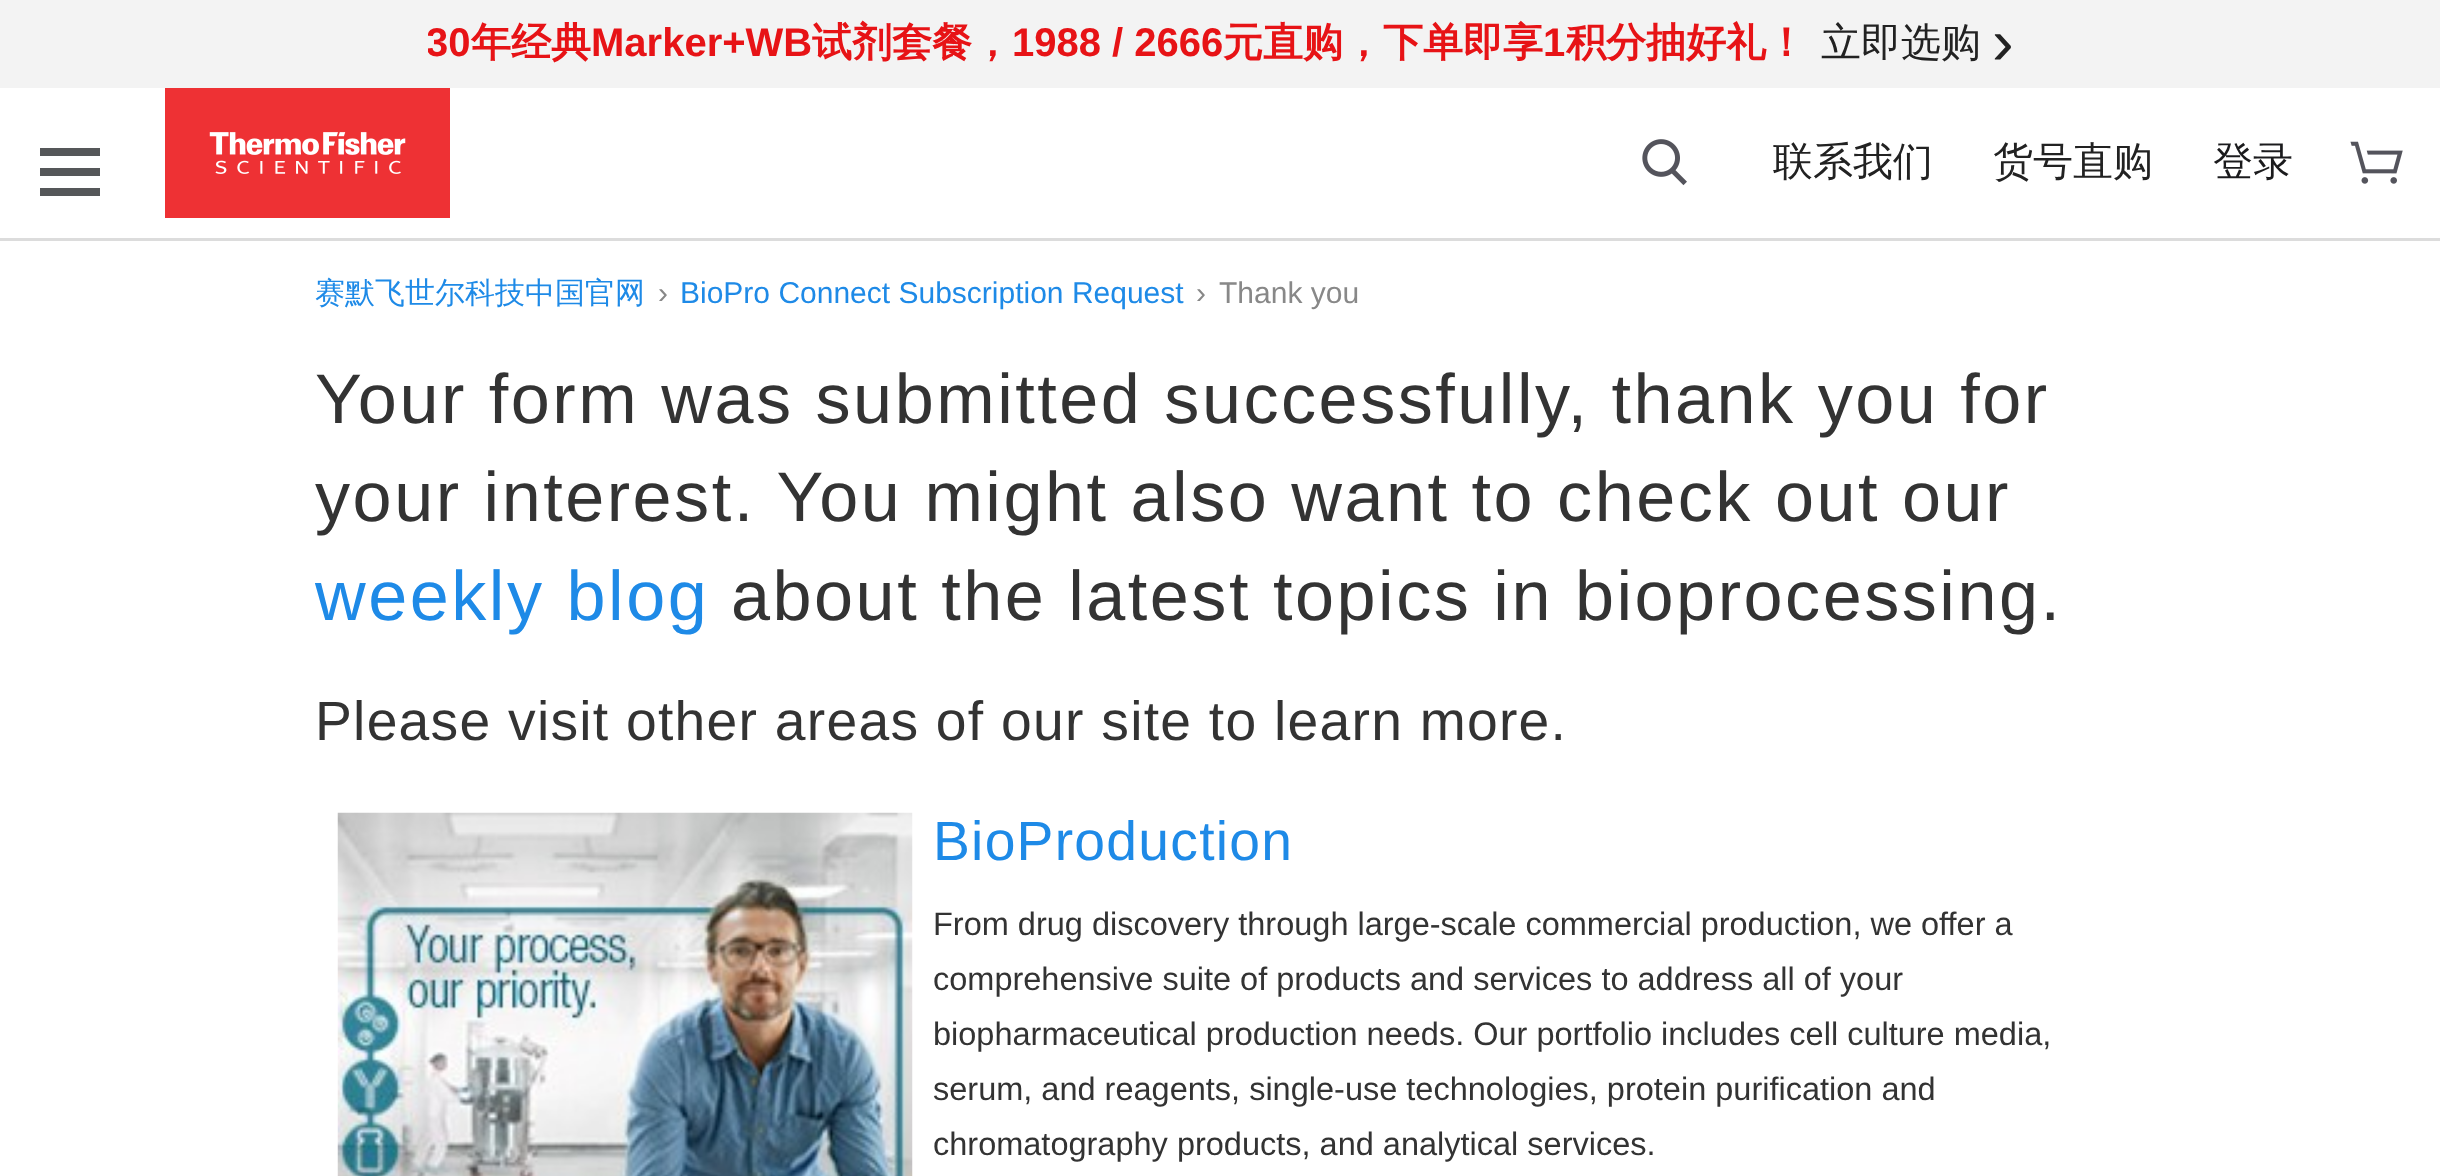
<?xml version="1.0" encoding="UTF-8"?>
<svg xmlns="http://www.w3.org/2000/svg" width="2440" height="1176">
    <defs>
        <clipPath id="clip1"><rect x="428" y="13" width="1377" height="65"/></clipPath>
    </defs>
    <rect width="100%" height="100%" fill="#FFFFFF"/>
    <rect x="0" y="238" width="2440" height="3" fill="#DCDCDC"/>
    <rect x="0" y="0" width="2440" height="88" fill="#F3F3F3"/>
    <g clip-path="url(#clip1)">
        <text x="426" y="56" font-family="Liberation Sans" font-size="40" font-weight="700" fill="#E71316">30</text>
    </g>
    <text x="471" y="56" font-family="WenQuanYi Zen Hei" font-size="40" font-weight="700" fill="#E71316">年经典</text>
    <text x="591" y="56" font-family="Liberation Sans" font-size="40" font-weight="700" fill="#E71316">Marker+WB</text>
    <text x="812" y="56" font-family="WenQuanYi Zen Hei" font-size="40" font-weight="700" fill="#E71316">试剂套餐，</text>
    <text x="1012" y="56" font-family="Liberation Sans" font-size="40" font-weight="700" fill="#E71316">1988 / 2666</text>
    <text x="1223" y="56" font-family="WenQuanYi Zen Hei" font-size="40" font-weight="700" fill="#E71316">元直购，下单即享</text>
    <text x="1543" y="56" font-family="Liberation Sans" font-size="40" font-weight="700" fill="#E71316">1</text>
    <text x="1566" y="56" font-family="WenQuanYi Zen Hei" font-size="40" font-weight="700" fill="#E71316">积分抽好礼！</text>
    <text x="1821" y="56" font-family="WenQuanYi Zen Hei" font-size="40" font-weight="500" fill="#222222">立即选购</text>
    <text x="1992" y="64" font-family="Liberation Sans" font-size="65" fill="#222222">›</text>
    <rect x="40" y="168" width="60" height="8" fill="#555759"/>
    <rect x="40" y="148" width="60" height="8" fill="#555759"/>
    <rect x="40" y="188" width="60" height="8" fill="#555759"/>
    <image x="165" y="88" width="285" height="130" href="img_01.png"/>
    <image x="1642" y="139" width="45" height="47" href="img_02.png"/>
    <text x="1773" y="175" font-family="WenQuanYi Zen Hei" font-size="40" font-weight="500" fill="#222222">联系我们</text>
    <text x="1993" y="175" font-family="WenQuanYi Zen Hei" font-size="40" font-weight="500" fill="#222222">货号直购</text>
    <text x="2213" y="175" font-family="WenQuanYi Zen Hei" font-size="40" font-weight="500" fill="#1B1B1D">登录</text>
    <image x="2350" y="141" width="53" height="43" href="img_03.png"/>
    <text x="315" y="303" font-family="WenQuanYi Zen Hei" font-size="30" font-weight="500" fill="#1E8AE7">赛默飞世尔科技中国官网</text>
    <text x="658" y="303" font-family="Liberation Sans" font-size="30" fill="#888888">›</text>
    <text x="680" y="303" font-family="Liberation Sans" font-size="30" fill="#1E8AE7">BioPro Connect Subscription Request</text>
    <text x="1196" y="303" font-family="Liberation Sans" font-size="30" fill="#888888">›</text>
    <text x="1219" y="303" font-family="Liberation Sans" font-size="30" fill="#888888">Thank you</text>
    <text font-family="Liberation Sans" font-size="70.2" letter-spacing="2.5" fill="#333333">
        <tspan x="315" y="423">Your form was submitted successfully, thank you for</tspan>
        <tspan x="315" y="521">your interest. You might also want to check out our</tspan>
    </text>
    <text x="315" y="620" font-family="Liberation Sans" font-size="70.2" letter-spacing="2.5" fill="#1E8AE7">weekly blog</text>
    <text x="731" y="620" font-family="Liberation Sans" font-size="70.2" letter-spacing="2.5" fill="#333333">about the latest topics in bioprocessing.</text>
    <text x="315" y="740" font-family="Liberation Sans" font-size="55.25" letter-spacing="1.25" fill="#333333">Please visit other areas of our site to learn more.</text>
    <image x="337" y="812" width="576" height="364" href="img_04.png"/>
    <text x="933" y="860" font-family="Liberation Sans" font-size="55.25" letter-spacing="1.25" fill="#1E8AE7">BioProduction</text>
    <text font-family="Liberation Sans" font-size="32.5" fill="#333333">
        <tspan x="933" y="935">From drug discovery through large-scale commercial production, we offer a</tspan>
        <tspan x="933" y="990">comprehensive suite of products and services to address all of your</tspan>
        <tspan x="933" y="1045">biopharmaceutical production needs. Our portfolio includes cell culture media,</tspan>
        <tspan x="933" y="1100">serum, and reagents, single-use technologies, protein purification and</tspan>
        <tspan x="933" y="1155">chromatography products, and analytical services.</tspan>
    </text>
</svg>
